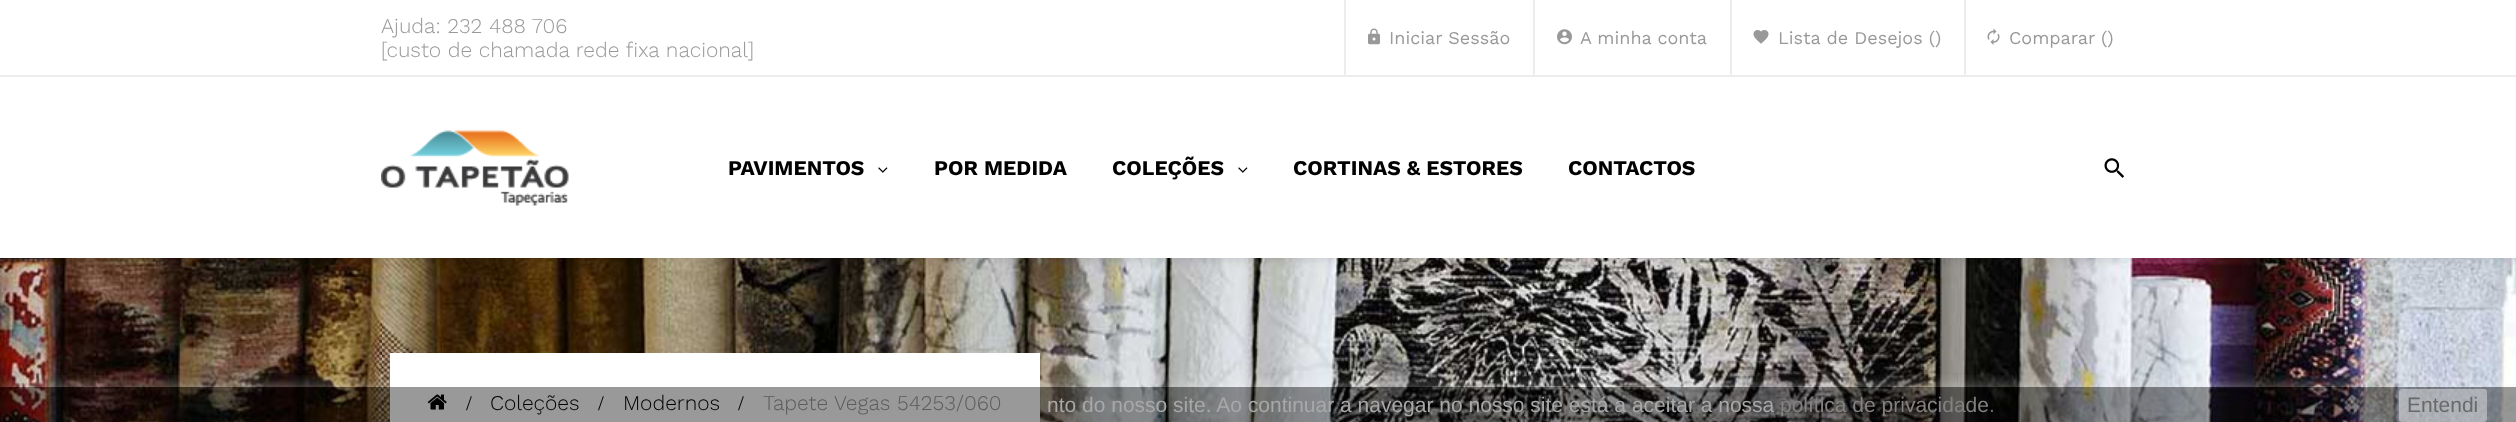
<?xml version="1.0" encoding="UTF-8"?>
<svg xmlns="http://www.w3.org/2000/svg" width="2516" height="422">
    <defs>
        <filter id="blur1" x="-50%" y="-200%" width="200%" height="500%"><feGaussianBlur stdDeviation="4"/></filter>
        <clipPath id="clip1"><rect x="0" y="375" width="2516" height="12"/></clipPath>
        <filter id="blur2" x="-50%" y="-200%" width="200%" height="500%"><feGaussianBlur stdDeviation="7.5"/></filter>
    </defs>
    <rect width="100%" height="100%" fill="#FFFFFF"/>
    <image x="0" y="258" width="2516" height="164" href="img_08.png"/>
    <rect x="3" y="3" width="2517" height="258" fill="#000000" fill-opacity="0.1" filter="url(#blur1)"/>
    <rect x="0" y="0" width="2516" height="258" fill="#FFFFFF"/>
    <rect x="0" y="75" width="2516" height="2" fill="#EDEDED"/>
    <text font-family="Work Sans" font-size="21" font-weight="300" fill="#999999">
        <tspan x="381" y="33">Ajuda: 232 488 706</tspan>
        <tspan x="381" y="57">[custo de chamada rede fixa nacional]</tspan>
    </text>
    <rect x="1344" y="0" width="2" height="75" fill="#EDEDED"/>
    <image x="1368" y="28" width="12" height="17" href="img_01.png"/>
    <text x="1389" y="44" font-family="Work Sans" font-size="18" fill="#999999">Iniciar Sessão</text>
    <rect x="1533" y="0" width="2" height="75" fill="#EDEDED"/>
    <image x="1557" y="29" width="15" height="16" href="img_02.png"/>
    <text x="1580" y="44" font-family="Work Sans" font-size="18" fill="#999999">A minha conta</text>
    <rect x="1730" y="0" width="2" height="75" fill="#EDEDED"/>
    <image x="1753" y="30" width="16" height="14" href="img_03.png"/>
    <text x="1778" y="44" font-family="Work Sans" font-size="18" fill="#999999">Lista de Desejos ()</text>
    <rect x="1964" y="0" width="2" height="75" fill="#EDEDED"/>
    <image x="1987" y="28" width="13" height="17" href="img_04.png"/>
    <text x="2009" y="44" font-family="Work Sans" font-size="18" fill="#999999">Comparar</text>
    <text x="2101" y="44" font-family="Work Sans" font-size="18" fill="#999999">()</text>
    <image x="381" y="130" width="188" height="76" href="img_05.png"/>
    <text x="728" y="175" font-family="Work Sans" font-size="21" font-weight="700" fill="#000000">PAVIMENTOS</text>
    <image x="878" y="167" width="10" height="6" href="img_06.png"/>
    <text x="934" y="175" font-family="Work Sans" font-size="21" font-weight="700" fill="#000000">POR MEDIDA</text>
    <text x="1112" y="175" font-family="Work Sans" font-size="21" font-weight="700" fill="#000000">COLEÇÕES</text>
    <image x="1238" y="167" width="10" height="6" href="img_06.png"/>
    <text x="1293" y="175" font-family="Work Sans" font-size="21" font-weight="700" fill="#000000">CORTINAS &amp; ESTORES</text>
    <text x="1568" y="175" font-family="Work Sans" font-size="21" font-weight="700" fill="#000000">CONTACTOS</text>
    <image x="2104" y="158" width="21" height="20" href="img_07.png"/>
    <rect x="390" y="353" width="650" height="69" fill="#FFFFFF"/>
    <image x="427" y="394" width="20" height="16" href="img_09.png"/>
    <text x="466" y="410" font-family="Liberation Serif" font-size="21" fill="#000000">/</text>
    <text x="490" y="410" font-family="Work Sans" font-size="21" font-weight="300" fill="#000000">Coleções</text>
    <text x="598" y="410" font-family="Liberation Serif" font-size="21" fill="#000000">/</text>
    <text x="623" y="410" font-family="Work Sans" font-size="21" font-weight="300" fill="#000000">Modernos</text>
    <text x="738" y="410" font-family="Liberation Serif" font-size="21" fill="#000000">/</text>
    <text x="763" y="410" font-family="Work Sans" font-size="21" font-weight="300" fill="#999999">Tapete Vegas 54253/060</text>
    <g clip-path="url(#clip1)">
        <rect x="0" y="387" width="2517" height="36" fill="#FFFFFF" fill-opacity="0.4" filter="url(#blur2)"/>
    </g>
    <rect x="0" y="387" width="2516" height="35" fill="#000000" fill-opacity="0.4"/>
    <text x="1047" y="412" font-family="Liberation Sans" font-size="21" fill="#A8A8A8">nto do nosso site. Ao continuar a navegar no nosso site está a aceitar a nossa</text>
    <text x="1780" y="412" font-family="Liberation Sans" font-size="21" fill="#838181">política de privacidade</text>
    <text x="1989" y="412" font-family="Liberation Sans" font-size="21" fill="#696969">.</text>
    <rect x="2399" y="389" width="88" height="33" rx="3" fill="#FFFFFF" fill-opacity="0.4"/>
    <text x="2407" y="412" font-family="Liberation Sans" font-size="21" fill="#696969">Entendi</text>
</svg>
